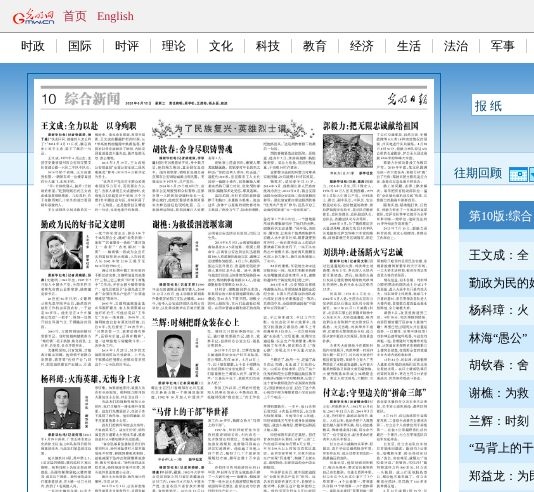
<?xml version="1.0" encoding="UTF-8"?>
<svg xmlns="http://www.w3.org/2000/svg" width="534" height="492">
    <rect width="100%" height="100%" fill="#FFFFFF"/>
    <rect x="0" y="0" width="534" height="32" fill="#F1F1F1"/>
    <rect x="0" y="32" width="534" height="1" fill="#999999"/>
    <image x="12" y="7" width="43" height="18" href="img_01.png"/>
    <text x="63" y="20" font-family="WenQuanYi Zen Hei" font-size="12" font-weight="500" fill="#BB2737">首页</text>
    <text x="97" y="20" font-family="Liberation Serif" font-size="12" fill="#BB2737">English</text>
    <rect x="56" y="39" width="1" height="14" fill="#CCCCCC"/>
    <text x="21" y="50" font-family="WenQuanYi Zen Hei" font-size="12" font-weight="500" fill="#000000">时政</text>
    <rect x="103" y="39" width="1" height="14" fill="#CCCCCC"/>
    <text x="68" y="50" font-family="WenQuanYi Zen Hei" font-size="12" font-weight="500" fill="#000000">国际</text>
    <rect x="150" y="39" width="1" height="14" fill="#CCCCCC"/>
    <text x="115" y="50" font-family="WenQuanYi Zen Hei" font-size="12" font-weight="500" fill="#000000">时评</text>
    <rect x="197" y="39" width="1" height="14" fill="#CCCCCC"/>
    <text x="162" y="50" font-family="WenQuanYi Zen Hei" font-size="12" font-weight="500" fill="#000000">理论</text>
    <rect x="244" y="39" width="1" height="14" fill="#CCCCCC"/>
    <text x="209" y="50" font-family="WenQuanYi Zen Hei" font-size="12" font-weight="500" fill="#000000">文化</text>
    <rect x="291" y="39" width="1" height="14" fill="#CCCCCC"/>
    <text x="256" y="50" font-family="WenQuanYi Zen Hei" font-size="12" font-weight="500" fill="#000000">科技</text>
    <rect x="338" y="39" width="1" height="14" fill="#CCCCCC"/>
    <text x="303" y="50" font-family="WenQuanYi Zen Hei" font-size="12" font-weight="500" fill="#000000">教育</text>
    <rect x="385" y="39" width="1" height="14" fill="#CCCCCC"/>
    <text x="350" y="50" font-family="WenQuanYi Zen Hei" font-size="12" font-weight="500" fill="#000000">经济</text>
    <rect x="432" y="39" width="1" height="14" fill="#CCCCCC"/>
    <text x="397" y="50" font-family="WenQuanYi Zen Hei" font-size="12" font-weight="500" fill="#000000">生活</text>
    <rect x="479" y="39" width="1" height="14" fill="#CCCCCC"/>
    <text x="444" y="50" font-family="WenQuanYi Zen Hei" font-size="12" font-weight="500" fill="#000000">法治</text>
    <rect x="526" y="39" width="1" height="14" fill="#CCCCCC"/>
    <text x="491" y="50" font-family="WenQuanYi Zen Hei" font-size="12" font-weight="500" fill="#000000">军事</text>
    <image x="0" y="63" width="534" height="89" href="img_02.png"/>
    <rect x="0" y="152" width="534" height="1" fill="#ACD0EA"/>
    <image x="0" y="153" width="534" height="33" href="img_05.png"/>
    <rect x="27.5" y="73.5" width="413" height="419" fill="none" stroke="#0065A7"/>
    <image x="34" y="79" width="400" height="413" href="img_03.png"/>
    <rect x="471.5" y="93.5" width="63" height="22" fill="#FFFFFF" stroke="#66B1EB"/>
    <text x="475" y="110" font-family="WenQuanYi Zen Hei" font-size="12" font-weight="500" fill="#004873">报</text>
    <text x="490" y="110" font-family="WenQuanYi Zen Hei" font-size="12" font-weight="500" fill="#004873">纸</text>
    <text x="454" y="177" font-family="WenQuanYi Zen Hei" font-size="12" font-weight="500" fill="#004873">往期回顾</text>
    <image x="509" y="167" width="25" height="15" href="img_04.png"/>
    <rect x="459" y="201" width="75" height="28" fill="#4087C5"/>
    <text x="469" y="220" font-family="WenQuanYi Zen Hei" font-size="12" font-weight="500" fill="#FFFFFF">第</text>
    <text x="481" y="220" font-family="Liberation Serif" font-size="12" fill="#FFFFFF">10</text>
    <text x="493" y="220" font-family="WenQuanYi Zen Hei" font-size="12" font-weight="500" fill="#FFFFFF">版 综合</text>
    <text x="505" y="220" font-family="Liberation Serif" font-size="12" fill="#FFFFFF">:</text>
    <rect x="459" y="230" width="75" height="12" fill="#D0EBFE"/>
    <rect x="459" y="229" width="75" height="1" fill="#94D5FF"/>
    <rect x="459" y="242" width="75" height="248" fill="#E6F5FC"/>
    <text x="469" y="259" word-spacing="-1" font-family="WenQuanYi Zen Hei" font-size="12" font-weight="500" fill="#000000">王文成：全</text>
    <rect x="459" y="270" width="75" height="27" fill="#D0EBFE"/>
    <text x="469" y="287" font-family="WenQuanYi Zen Hei" font-size="12" font-weight="500" fill="#000000">勤政为民的好</text>
    <text x="469" y="314" font-family="WenQuanYi Zen Hei" font-size="12" font-weight="500" fill="#000000">杨科璋：火</text>
    <rect x="459" y="325" width="75" height="27" fill="#D0EBFE"/>
    <text x="469" y="342" font-family="WenQuanYi Zen Hei" font-size="12" font-weight="500" fill="#000000">林海</text>
    <text x="493" y="342" font-family="Liberation Serif" font-size="12" fill="#000000">“</text>
    <text x="498" y="342" font-family="WenQuanYi Zen Hei" font-size="12" font-weight="500" fill="#000000">愚公</text>
    <text x="522" y="342" font-family="Liberation Serif" font-size="12" fill="#000000">”</text>
    <text x="469" y="369" font-family="WenQuanYi Zen Hei" font-size="12" font-weight="500" fill="#000000">胡钦春：舍</text>
    <rect x="459" y="380" width="75" height="28" fill="#D0EBFE"/>
    <text x="469" y="397" font-family="WenQuanYi Zen Hei" font-size="12" font-weight="500" fill="#000000">谢樵：为救</text>
    <text x="469" y="425" font-family="WenQuanYi Zen Hei" font-size="12" font-weight="500" fill="#000000">兰辉：时刻</text>
    <rect x="459" y="435" width="75" height="28" fill="#D0EBFE"/>
    <text x="469" y="452" font-family="Liberation Serif" font-size="12" fill="#000000">“</text>
    <text x="474" y="452" font-family="WenQuanYi Zen Hei" font-size="12" font-weight="500" fill="#000000">马背上的干</text>
    <text x="469" y="480" font-family="WenQuanYi Zen Hei" font-size="12" font-weight="500" fill="#000000">郑益龙：为民</text>
    <rect x="459" y="490" width="75" height="2" fill="#D0EBFE"/>
</svg>
